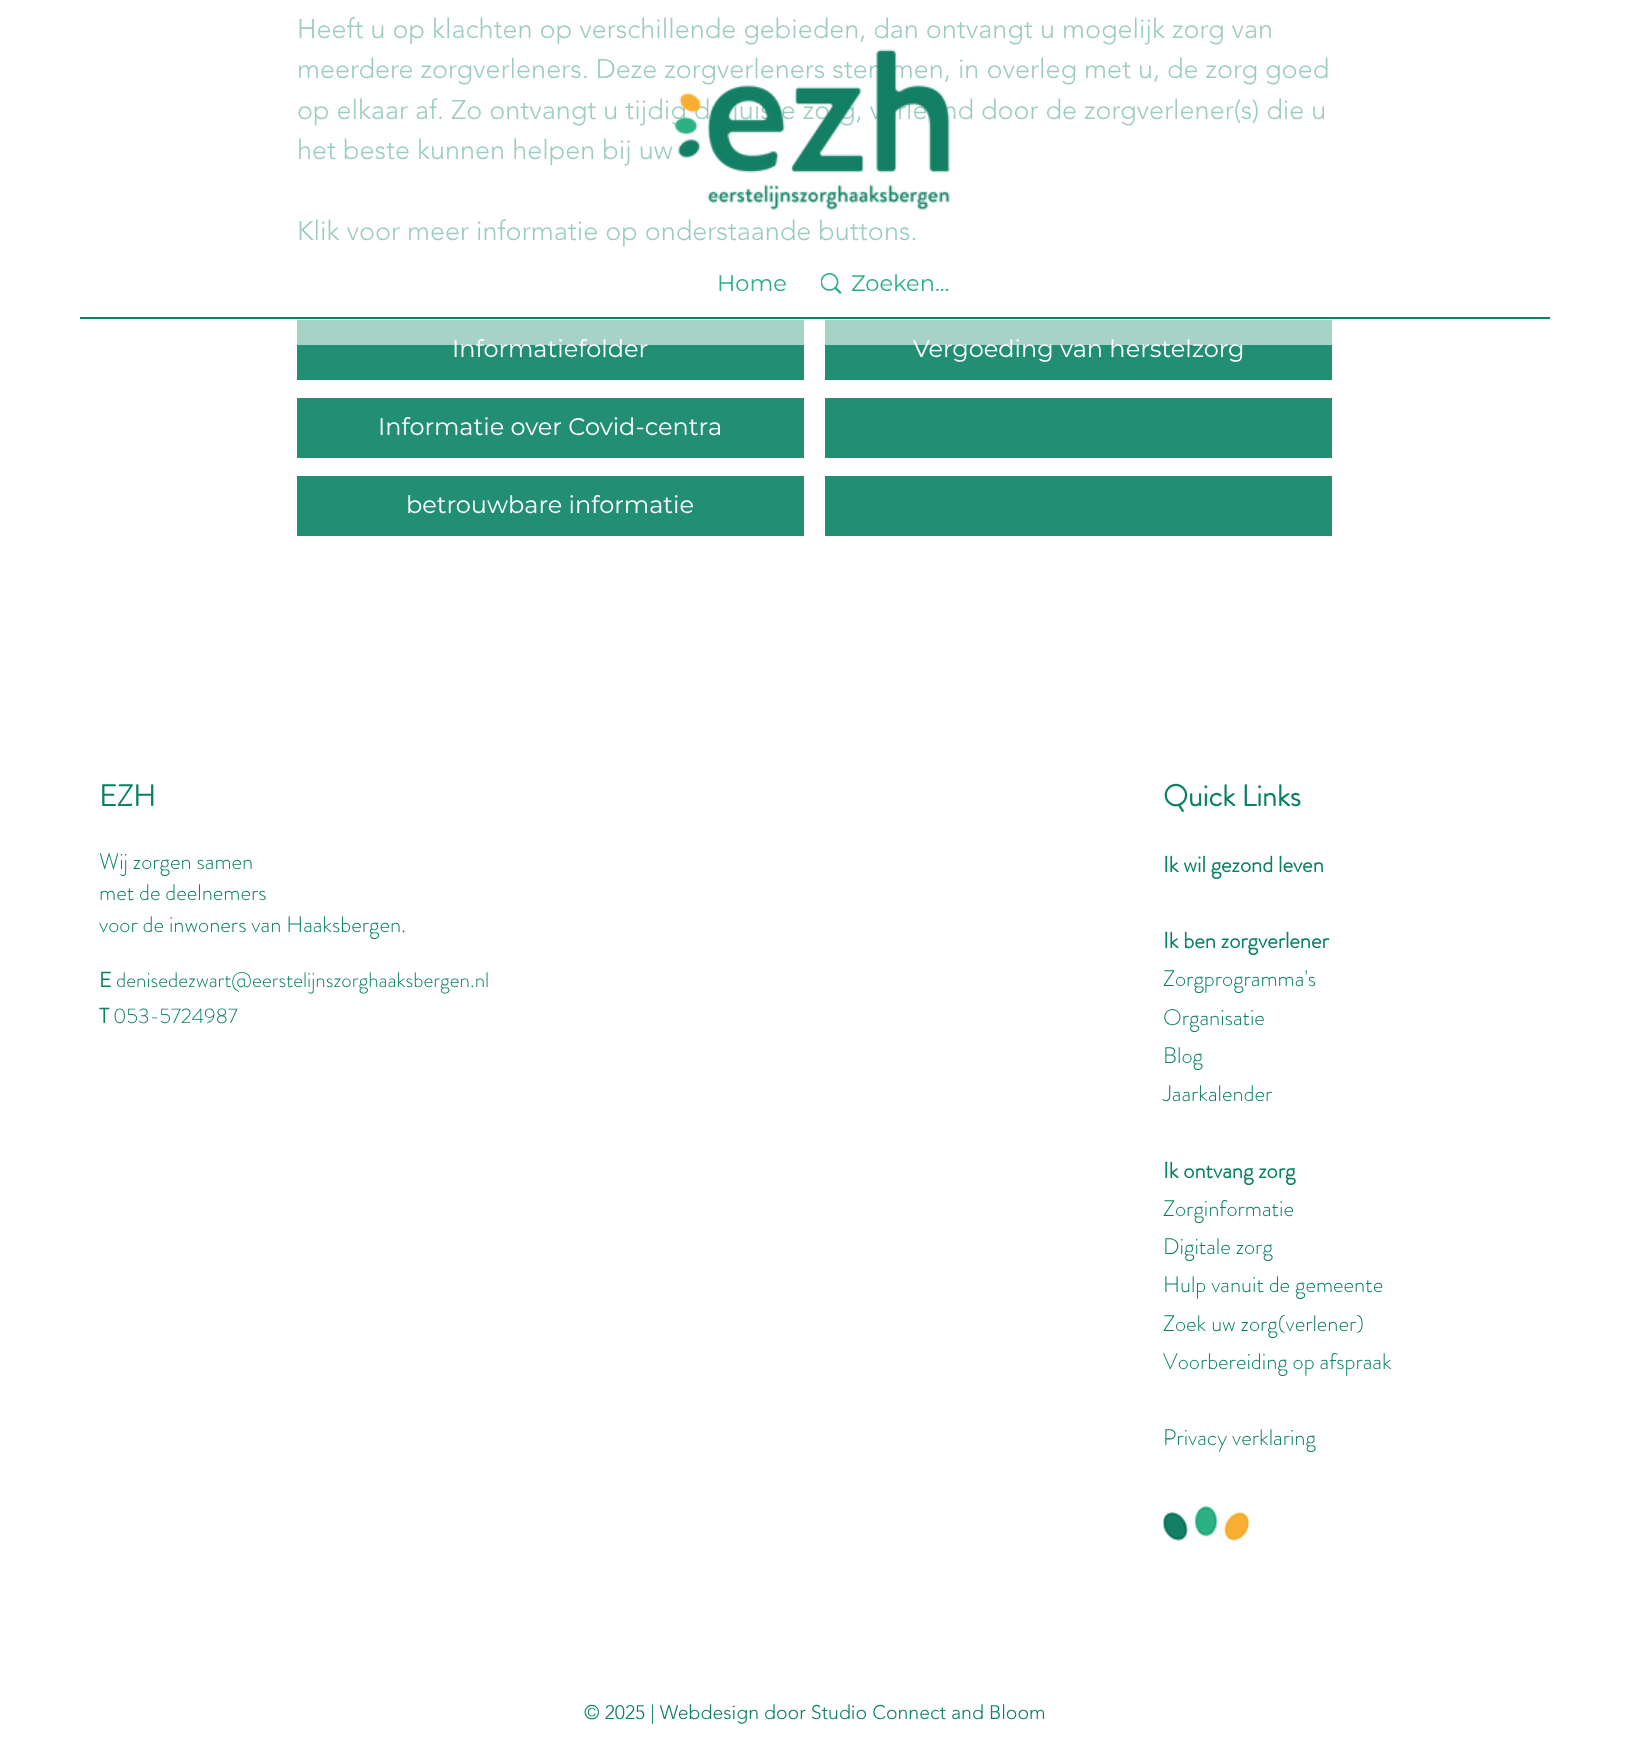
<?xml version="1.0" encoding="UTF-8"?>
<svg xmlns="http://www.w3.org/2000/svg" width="1628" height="1764">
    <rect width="100%" height="100%" fill="#FFFFFF"/>
    <text font-family="'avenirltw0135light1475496'" font-size="27" font-weight="300" fill="#098164">
        <tspan x="297" y="38">Heeft u op klachten op verschillende gebieden, dan ontvangt u mogelijk zorg van</tspan>
        <tspan x="297" y="78">meerdere zorgverleners. Deze zorgverleners stemmen, in overleg met u, de zorg goed</tspan>
        <tspan x="297" y="119">op elkaar af. Zo ontvangt u tijdig de juiste zorg, verleend door de zorgverlener(s) die u</tspan>
        <tspan x="297" y="159">het beste kunnen helpen bij uw</tspan>
    </text>
    <text x="297" y="240" font-family="'avenirltw0135light1475496'" font-size="27" font-weight="300" fill="#098164">Klik voor meer informatie op onderstaande buttons.</text>
    <rect x="297" y="320" width="507" height="60" fill="#228E74"/>
    <text x="452" y="357" font-family="Montserrat" font-size="24" fill="#FFFFFF">Informatiefolder</text>
    <rect x="825" y="320" width="507" height="60" fill="#228E74"/>
    <text x="913" y="357" font-family="Montserrat" font-size="24" fill="#FFFFFF">Vergoeding van herstelzorg</text>
    <rect x="297" y="398" width="507" height="60" fill="#228E74"/>
    <text x="378" y="435" font-family="Montserrat" font-size="24" fill="#FFFFFF">Informatie over Covid-centra</text>
    <rect x="825" y="398" width="507" height="60" fill="#228E74"/>
    <rect x="297" y="476" width="507" height="60" fill="#228E74"/>
    <text x="406" y="513" font-family="Montserrat" font-size="24" fill="#FFFFFF">betrouwbare informatie</text>
    <rect x="825" y="476" width="507" height="60" fill="#228E74"/>
    <rect x="297" y="17" width="1035" height="328" fill="#FFFFFF" fill-opacity="0.6"/>
    <image x="674" y="49" width="276" height="162" href="img_01.png"/>
    <text x="717" y="291" font-family="Montserrat" font-size="22.5" fill="#2FAF84">Home</text>
    <image x="821" y="273" width="21" height="21" href="img_02.png"/>
    <text x="851" y="291" font-family="Montserrat" font-size="22.5" fill="#2FAF84">Zoeken...</text>
    <rect x="80" y="317" width="1470" height="2" fill="#098164"/>
    <text x="99" y="806" font-family="'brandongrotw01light'" font-size="30" font-weight="700" fill="#098164">EZH</text>
    <text font-family="'brandongrotw01light'" font-size="22.5" font-weight="300" fill="#098164">
        <tspan x="99" y="869">Wij zorgen samen</tspan>
        <tspan x="99" y="900">met de deelnemers</tspan>
        <tspan x="99" y="932">voor de inwoners van Haaksbergen.</tspan>
    </text>
    <text x="99" y="987" font-family="'brandongrotw01light'" font-size="21" font-weight="700" fill="#098164">E</text>
    <text x="116" y="987" font-family="'brandongrotw01light'" font-size="21" font-weight="300" fill="#098164">denisedezwart@eerstelijnszorghaaksbergen.nl</text>
    <text x="99" y="1023" font-family="'brandongrotw01light'" font-size="21" font-weight="700" fill="#098164">T</text>
    <text x="113" y="1023" font-family="'brandongrotw01light'" font-size="21" font-weight="300" fill="#098164">053-5724987</text>
    <text x="1163" y="806" font-family="'brandongrotw01light'" font-size="30" font-weight="700" fill="#098164">Quick Links</text>
    <text x="1163" y="872" font-family="'brandongrotw01light'" font-size="22.5" font-weight="700" fill="#098164">Ik wil gezond leven</text>
    <text x="1163" y="948" font-family="'brandongrotw01light'" font-size="22.5" font-weight="700" fill="#098164">Ik ben zorgverlener</text>
    <text font-family="'brandongrotw01light'" font-size="22.5" font-weight="300" fill="#098164">
        <tspan x="1163" y="986">Zorgprogramma's</tspan>
        <tspan x="1163" y="1025">Organisatie</tspan>
        <tspan x="1163" y="1063">Blog</tspan>
        <tspan x="1163" y="1101">Jaarkalender</tspan>
    </text>
    <text x="1163" y="1178" font-family="'brandongrotw01light'" font-size="22.5" font-weight="700" fill="#098164">Ik ontvang zorg</text>
    <text font-family="'brandongrotw01light'" font-size="22.5" font-weight="300" fill="#098164">
        <tspan x="1163" y="1216">Zorginformatie</tspan>
        <tspan x="1163" y="1254">Digitale zorg</tspan>
        <tspan x="1163" y="1292">Hulp vanuit de gemeente</tspan>
        <tspan x="1163" y="1331">Zoek uw zorg(verlener)</tspan>
        <tspan x="1163" y="1369">Voorbereiding op afspraak</tspan>
    </text>
    <text x="1163" y="1445" font-family="'brandongrotw01light'" font-size="22.5" font-weight="300" fill="#098164">Privacy verklaring</text>
    <image x="1163" y="1505" width="86" height="36" href="img_03.png"/>
    <text x="584" y="1719" font-family="'avenirltw0135light1475496'" font-size="19.5" font-weight="300" fill="#098164">© 2025 | Webdesign door Studio Connect and Bloom</text>
</svg>
